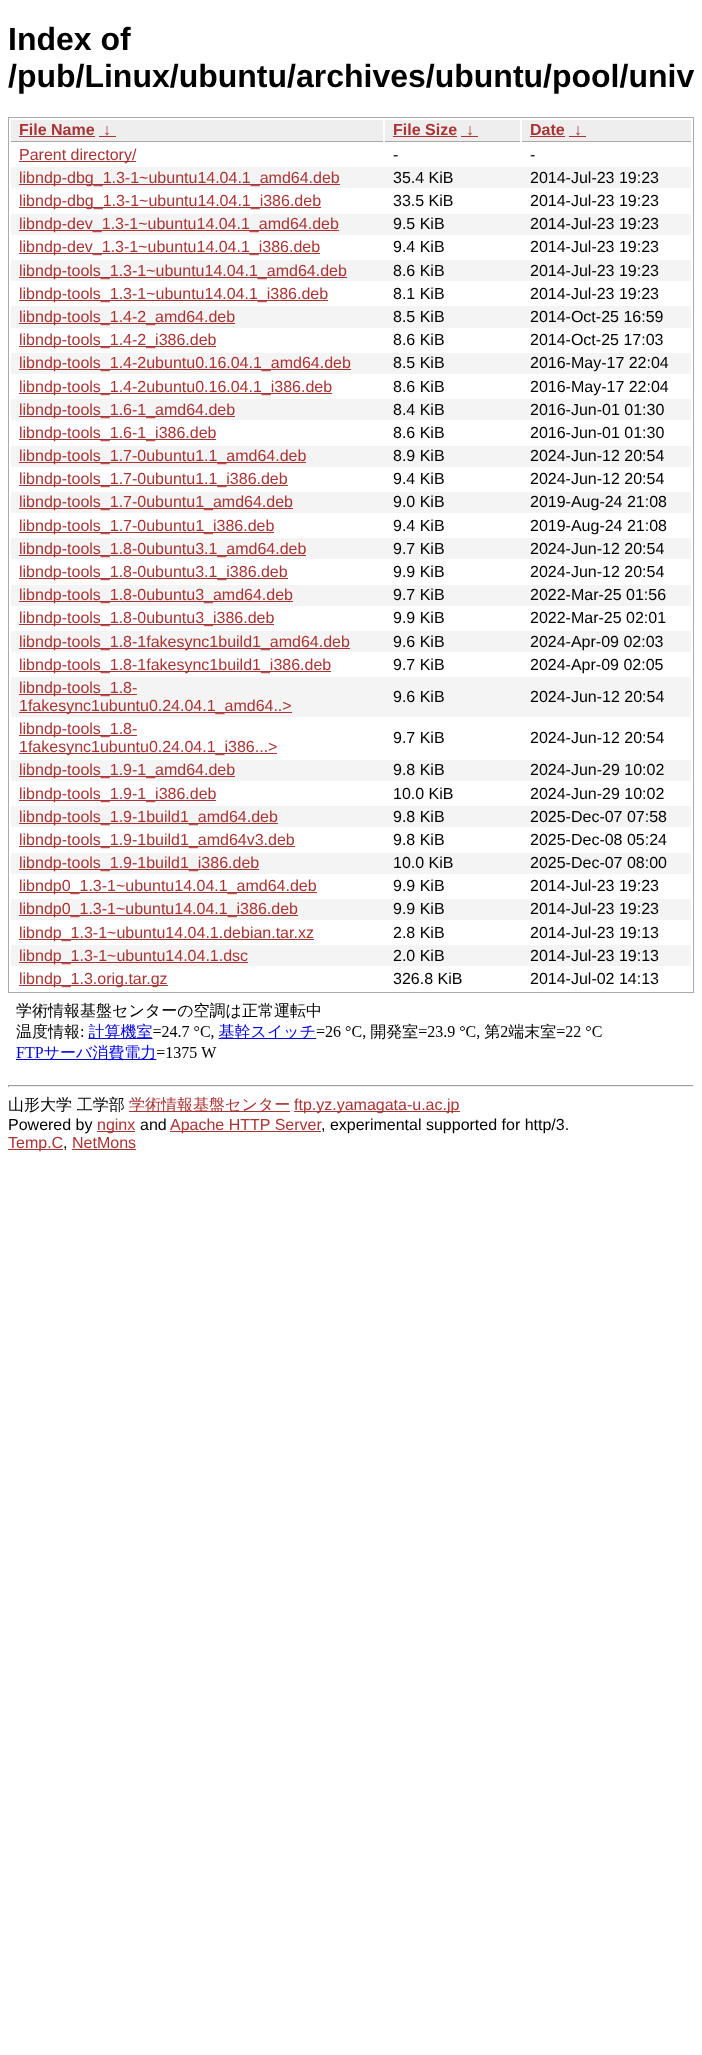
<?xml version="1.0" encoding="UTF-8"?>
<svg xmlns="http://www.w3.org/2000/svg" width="702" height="2055">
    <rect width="100%" height="100%" fill="#FFFFFF"/>
    <text font-family="Liberation Sans" font-size="32" font-weight="700" fill="#000000">
        <tspan x="8" y="50">Index of</tspan>
        <tspan x="8" y="87">/pub/Linux/ubuntu/archives/ubuntu/pool/univ</tspan>
    </text>
    <rect x="8.5" y="117.5" width="685" height="875" fill="none" stroke="#AAAAAA"/>
    <rect x="11" y="120" width="372" height="21" fill="#EEEEEE"/>
    <rect x="11" y="141" width="372" height="1" fill="#AAAAAA"/>
    <text x="19" y="135" font-family="Liberation Sans" font-size="16" font-weight="700" fill="#AA3333">File Name</text>
    <rect x="19" y="136" width="76" height="1" fill="#AA3333"/>
    <text x="103" y="135" font-family="Liberation Sans" font-size="16" font-weight="700" fill="#AA3333">↓</text>
    <rect x="99" y="136" width="17" height="1" fill="#AA3333"/>
    <rect x="385" y="120" width="135" height="21" fill="#EEEEEE"/>
    <rect x="385" y="141" width="135" height="1" fill="#AAAAAA"/>
    <text x="393" y="135" font-family="Liberation Sans" font-size="16" font-weight="700" fill="#AA3333">File Size</text>
    <rect x="393" y="136" width="64" height="1" fill="#AA3333"/>
    <text x="466" y="135" font-family="Liberation Sans" font-size="16" font-weight="700" fill="#AA3333">↓</text>
    <rect x="461" y="136" width="17" height="1" fill="#AA3333"/>
    <rect x="522" y="120" width="169" height="21" fill="#EEEEEE"/>
    <rect x="522" y="141" width="169" height="1" fill="#AAAAAA"/>
    <text x="530" y="135" font-family="Liberation Sans" font-size="16" font-weight="700" fill="#AA3333">Date</text>
    <rect x="530" y="136" width="35" height="1" fill="#AA3333"/>
    <text x="574" y="135" font-family="Liberation Sans" font-size="16" font-weight="700" fill="#AA3333">↓</text>
    <rect x="569" y="136" width="17" height="1" fill="#AA3333"/>
    <rect x="19" y="161" width="117" height="1" fill="#AA3333"/>
    <text x="19" y="160" font-family="Liberation Sans" font-size="16" fill="#AA3333">Parent directory/</text>
    <text x="393" y="160" font-family="Liberation Sans" font-size="16" fill="#000000">-</text>
    <text x="530" y="160" font-family="Liberation Sans" font-size="16" fill="#000000">-</text>
    <rect x="11" y="167" width="680" height="21" fill="#F4F4F4"/>
    <rect x="19" y="184" width="321" height="1" fill="#AA3333"/>
    <text x="19" y="183" font-family="Liberation Sans" font-size="16" fill="#AA3333">libndp-dbg_1.3-1~ubuntu14.04.1_amd64.deb</text>
    <text x="393" y="183" font-family="Liberation Sans" font-size="16" fill="#000000">35.4 KiB</text>
    <text x="530" y="183" font-family="Liberation Sans" font-size="16" fill="#000000">2014-Jul-23 19:23</text>
    <rect x="19" y="207" width="302" height="1" fill="#AA3333"/>
    <text x="19" y="206" font-family="Liberation Sans" font-size="16" fill="#AA3333">libndp-dbg_1.3-1~ubuntu14.04.1_i386.deb</text>
    <text x="393" y="206" font-family="Liberation Sans" font-size="16" fill="#000000">33.5 KiB</text>
    <text x="530" y="206" font-family="Liberation Sans" font-size="16" fill="#000000">2014-Jul-23 19:23</text>
    <rect x="11" y="214" width="680" height="21" fill="#F4F4F4"/>
    <rect x="19" y="230" width="320" height="1" fill="#AA3333"/>
    <text x="19" y="229" font-family="Liberation Sans" font-size="16" fill="#AA3333">libndp-dev_1.3-1~ubuntu14.04.1_amd64.deb</text>
    <text x="393" y="229" font-family="Liberation Sans" font-size="16" fill="#000000">9.5 KiB</text>
    <text x="530" y="229" font-family="Liberation Sans" font-size="16" fill="#000000">2014-Jul-23 19:23</text>
    <rect x="19" y="253" width="301" height="1" fill="#AA3333"/>
    <text x="19" y="252" font-family="Liberation Sans" font-size="16" fill="#AA3333">libndp-dev_1.3-1~ubuntu14.04.1_i386.deb</text>
    <text x="393" y="252" font-family="Liberation Sans" font-size="16" fill="#000000">9.4 KiB</text>
    <text x="530" y="252" font-family="Liberation Sans" font-size="16" fill="#000000">2014-Jul-23 19:23</text>
    <rect x="11" y="260" width="680" height="21" fill="#F4F4F4"/>
    <rect x="19" y="277" width="328" height="1" fill="#AA3333"/>
    <text x="19" y="276" font-family="Liberation Sans" font-size="16" fill="#AA3333">libndp-tools_1.3-1~ubuntu14.04.1_amd64.deb</text>
    <text x="393" y="276" font-family="Liberation Sans" font-size="16" fill="#000000">8.6 KiB</text>
    <text x="530" y="276" font-family="Liberation Sans" font-size="16" fill="#000000">2014-Jul-23 19:23</text>
    <rect x="19" y="300" width="309" height="1" fill="#AA3333"/>
    <text x="19" y="299" font-family="Liberation Sans" font-size="16" fill="#AA3333">libndp-tools_1.3-1~ubuntu14.04.1_i386.deb</text>
    <text x="393" y="299" font-family="Liberation Sans" font-size="16" fill="#000000">8.1 KiB</text>
    <text x="530" y="299" font-family="Liberation Sans" font-size="16" fill="#000000">2014-Jul-23 19:23</text>
    <rect x="11" y="306" width="680" height="22" fill="#F4F4F4"/>
    <rect x="19" y="323" width="216" height="1" fill="#AA3333"/>
    <text x="19" y="322" font-family="Liberation Sans" font-size="16" fill="#AA3333">libndp-tools_1.4-2_amd64.deb</text>
    <text x="393" y="322" font-family="Liberation Sans" font-size="16" fill="#000000">8.5 KiB</text>
    <text x="530" y="322" font-family="Liberation Sans" font-size="16" fill="#000000">2014-Oct-25 16:59</text>
    <rect x="19" y="346" width="197" height="1" fill="#AA3333"/>
    <text x="19" y="345" font-family="Liberation Sans" font-size="16" fill="#AA3333">libndp-tools_1.4-2_i386.deb</text>
    <text x="393" y="345" font-family="Liberation Sans" font-size="16" fill="#000000">8.6 KiB</text>
    <text x="530" y="345" font-family="Liberation Sans" font-size="16" fill="#000000">2014-Oct-25 17:03</text>
    <rect x="11" y="353" width="680" height="21" fill="#F4F4F4"/>
    <rect x="19" y="369" width="332" height="1" fill="#AA3333"/>
    <text x="19" y="368" font-family="Liberation Sans" font-size="16" fill="#AA3333">libndp-tools_1.4-2ubuntu0.16.04.1_amd64.deb</text>
    <text x="393" y="368" font-family="Liberation Sans" font-size="16" fill="#000000">8.5 KiB</text>
    <text x="530" y="368" font-family="Liberation Sans" font-size="16" fill="#000000">2016-May-17 22:04</text>
    <rect x="19" y="393" width="313" height="1" fill="#AA3333"/>
    <text x="19" y="392" font-family="Liberation Sans" font-size="16" fill="#AA3333">libndp-tools_1.4-2ubuntu0.16.04.1_i386.deb</text>
    <text x="393" y="392" font-family="Liberation Sans" font-size="16" fill="#000000">8.6 KiB</text>
    <text x="530" y="392" font-family="Liberation Sans" font-size="16" fill="#000000">2016-May-17 22:04</text>
    <rect x="11" y="399" width="680" height="21" fill="#F4F4F4"/>
    <rect x="19" y="416" width="216" height="1" fill="#AA3333"/>
    <text x="19" y="415" font-family="Liberation Sans" font-size="16" fill="#AA3333">libndp-tools_1.6-1_amd64.deb</text>
    <text x="393" y="415" font-family="Liberation Sans" font-size="16" fill="#000000">8.4 KiB</text>
    <text x="530" y="415" font-family="Liberation Sans" font-size="16" fill="#000000">2016-Jun-01 01:30</text>
    <rect x="19" y="439" width="197" height="1" fill="#AA3333"/>
    <text x="19" y="438" font-family="Liberation Sans" font-size="16" fill="#AA3333">libndp-tools_1.6-1_i386.deb</text>
    <text x="393" y="438" font-family="Liberation Sans" font-size="16" fill="#000000">8.6 KiB</text>
    <text x="530" y="438" font-family="Liberation Sans" font-size="16" fill="#000000">2016-Jun-01 01:30</text>
    <rect x="11" y="446" width="680" height="21" fill="#F4F4F4"/>
    <rect x="19" y="462" width="287" height="1" fill="#AA3333"/>
    <text x="19" y="461" font-family="Liberation Sans" font-size="16" fill="#AA3333">libndp-tools_1.7-0ubuntu1.1_amd64.deb</text>
    <text x="393" y="461" font-family="Liberation Sans" font-size="16" fill="#000000">8.9 KiB</text>
    <text x="530" y="461" font-family="Liberation Sans" font-size="16" fill="#000000">2024-Jun-12 20:54</text>
    <rect x="19" y="485" width="269" height="1" fill="#AA3333"/>
    <text x="19" y="484" font-family="Liberation Sans" font-size="16" fill="#AA3333">libndp-tools_1.7-0ubuntu1.1_i386.deb</text>
    <text x="393" y="484" font-family="Liberation Sans" font-size="16" fill="#000000">9.4 KiB</text>
    <text x="530" y="484" font-family="Liberation Sans" font-size="16" fill="#000000">2024-Jun-12 20:54</text>
    <rect x="11" y="492" width="680" height="21" fill="#F4F4F4"/>
    <rect x="19" y="508" width="274" height="1" fill="#AA3333"/>
    <text x="19" y="507" font-family="Liberation Sans" font-size="16" fill="#AA3333">libndp-tools_1.7-0ubuntu1_amd64.deb</text>
    <text x="393" y="507" font-family="Liberation Sans" font-size="16" fill="#000000">9.0 KiB</text>
    <text x="530" y="507" font-family="Liberation Sans" font-size="16" fill="#000000">2019-Aug-24 21:08</text>
    <rect x="19" y="532" width="255" height="1" fill="#AA3333"/>
    <text x="19" y="531" font-family="Liberation Sans" font-size="16" fill="#AA3333">libndp-tools_1.7-0ubuntu1_i386.deb</text>
    <text x="393" y="531" font-family="Liberation Sans" font-size="16" fill="#000000">9.4 KiB</text>
    <text x="530" y="531" font-family="Liberation Sans" font-size="16" fill="#000000">2019-Aug-24 21:08</text>
    <rect x="11" y="538" width="680" height="21" fill="#F4F4F4"/>
    <rect x="19" y="555" width="287" height="1" fill="#AA3333"/>
    <text x="19" y="554" font-family="Liberation Sans" font-size="16" fill="#AA3333">libndp-tools_1.8-0ubuntu3.1_amd64.deb</text>
    <text x="393" y="554" font-family="Liberation Sans" font-size="16" fill="#000000">9.7 KiB</text>
    <text x="530" y="554" font-family="Liberation Sans" font-size="16" fill="#000000">2024-Jun-12 20:54</text>
    <rect x="19" y="578" width="269" height="1" fill="#AA3333"/>
    <text x="19" y="577" font-family="Liberation Sans" font-size="16" fill="#AA3333">libndp-tools_1.8-0ubuntu3.1_i386.deb</text>
    <text x="393" y="577" font-family="Liberation Sans" font-size="16" fill="#000000">9.9 KiB</text>
    <text x="530" y="577" font-family="Liberation Sans" font-size="16" fill="#000000">2024-Jun-12 20:54</text>
    <rect x="11" y="585" width="680" height="21" fill="#F4F4F4"/>
    <rect x="19" y="601" width="274" height="1" fill="#AA3333"/>
    <text x="19" y="600" font-family="Liberation Sans" font-size="16" fill="#AA3333">libndp-tools_1.8-0ubuntu3_amd64.deb</text>
    <text x="393" y="600" font-family="Liberation Sans" font-size="16" fill="#000000">9.7 KiB</text>
    <text x="530" y="600" font-family="Liberation Sans" font-size="16" fill="#000000">2022-Mar-25 01:56</text>
    <rect x="19" y="624" width="255" height="1" fill="#AA3333"/>
    <text x="19" y="623" font-family="Liberation Sans" font-size="16" fill="#AA3333">libndp-tools_1.8-0ubuntu3_i386.deb</text>
    <text x="393" y="623" font-family="Liberation Sans" font-size="16" fill="#000000">9.9 KiB</text>
    <text x="530" y="623" font-family="Liberation Sans" font-size="16" fill="#000000">2022-Mar-25 02:01</text>
    <rect x="11" y="631" width="680" height="21" fill="#F4F4F4"/>
    <rect x="19" y="648" width="331" height="1" fill="#AA3333"/>
    <text x="19" y="647" font-family="Liberation Sans" font-size="16" fill="#AA3333">libndp-tools_1.8-1fakesync1build1_amd64.deb</text>
    <text x="393" y="647" font-family="Liberation Sans" font-size="16" fill="#000000">9.6 KiB</text>
    <text x="530" y="647" font-family="Liberation Sans" font-size="16" fill="#000000">2024-Apr-09 02:03</text>
    <rect x="19" y="671" width="312" height="1" fill="#AA3333"/>
    <text x="19" y="670" font-family="Liberation Sans" font-size="16" fill="#AA3333">libndp-tools_1.8-1fakesync1build1_i386.deb</text>
    <text x="393" y="670" font-family="Liberation Sans" font-size="16" fill="#000000">9.7 KiB</text>
    <text x="530" y="670" font-family="Liberation Sans" font-size="16" fill="#000000">2024-Apr-09 02:05</text>
    <rect x="11" y="677" width="680" height="40" fill="#F4F4F4"/>
    <rect x="19" y="694" width="118" height="1" fill="#AA3333"/>
    <text x="19" y="693" font-family="Liberation Sans" font-size="16" fill="#AA3333">libndp-tools_1.8-</text>
    <rect x="19" y="712" width="273" height="1" fill="#AA3333"/>
    <text x="19" y="711" font-family="Liberation Sans" font-size="16" fill="#AA3333">1fakesync1ubuntu0.24.04.1_amd64..&gt;</text>
    <text x="393" y="702" font-family="Liberation Sans" font-size="16" fill="#000000">9.6 KiB</text>
    <text x="530" y="702" font-family="Liberation Sans" font-size="16" fill="#000000">2024-Jun-12 20:54</text>
    <rect x="19" y="735" width="118" height="1" fill="#AA3333"/>
    <text x="19" y="734" font-family="Liberation Sans" font-size="16" fill="#AA3333">libndp-tools_1.8-</text>
    <rect x="19" y="753" width="258" height="1" fill="#AA3333"/>
    <text x="19" y="752" font-family="Liberation Sans" font-size="16" fill="#AA3333">1fakesync1ubuntu0.24.04.1_i386...&gt;</text>
    <text x="393" y="743" font-family="Liberation Sans" font-size="16" fill="#000000">9.7 KiB</text>
    <text x="530" y="743" font-family="Liberation Sans" font-size="16" fill="#000000">2024-Jun-12 20:54</text>
    <rect x="11" y="760" width="680" height="21" fill="#F4F4F4"/>
    <rect x="19" y="776" width="216" height="1" fill="#AA3333"/>
    <text x="19" y="775" font-family="Liberation Sans" font-size="16" fill="#AA3333">libndp-tools_1.9-1_amd64.deb</text>
    <text x="393" y="775" font-family="Liberation Sans" font-size="16" fill="#000000">9.8 KiB</text>
    <text x="530" y="775" font-family="Liberation Sans" font-size="16" fill="#000000">2024-Jun-29 10:02</text>
    <rect x="19" y="800" width="197" height="1" fill="#AA3333"/>
    <text x="19" y="799" font-family="Liberation Sans" font-size="16" fill="#AA3333">libndp-tools_1.9-1_i386.deb</text>
    <text x="393" y="799" font-family="Liberation Sans" font-size="16" fill="#000000">10.0 KiB</text>
    <text x="530" y="799" font-family="Liberation Sans" font-size="16" fill="#000000">2024-Jun-29 10:02</text>
    <rect x="11" y="806" width="680" height="21" fill="#F4F4F4"/>
    <rect x="19" y="823" width="259" height="1" fill="#AA3333"/>
    <text x="19" y="822" font-family="Liberation Sans" font-size="16" fill="#AA3333">libndp-tools_1.9-1build1_amd64.deb</text>
    <text x="393" y="822" font-family="Liberation Sans" font-size="16" fill="#000000">9.8 KiB</text>
    <text x="530" y="822" font-family="Liberation Sans" font-size="16" fill="#000000">2025-Dec-07 07:58</text>
    <rect x="19" y="846" width="276" height="1" fill="#AA3333"/>
    <text x="19" y="845" font-family="Liberation Sans" font-size="16" fill="#AA3333">libndp-tools_1.9-1build1_amd64v3.deb</text>
    <text x="393" y="845" font-family="Liberation Sans" font-size="16" fill="#000000">9.8 KiB</text>
    <text x="530" y="845" font-family="Liberation Sans" font-size="16" fill="#000000">2025-Dec-08 05:24</text>
    <rect x="11" y="853" width="680" height="21" fill="#F4F4F4"/>
    <rect x="19" y="869" width="240" height="1" fill="#AA3333"/>
    <text x="19" y="868" font-family="Liberation Sans" font-size="16" fill="#AA3333">libndp-tools_1.9-1build1_i386.deb</text>
    <text x="393" y="868" font-family="Liberation Sans" font-size="16" fill="#000000">10.0 KiB</text>
    <text x="530" y="868" font-family="Liberation Sans" font-size="16" fill="#000000">2025-Dec-07 08:00</text>
    <rect x="19" y="892" width="298" height="1" fill="#AA3333"/>
    <text x="19" y="891" font-family="Liberation Sans" font-size="16" fill="#AA3333">libndp0_1.3-1~ubuntu14.04.1_amd64.deb</text>
    <text x="393" y="891" font-family="Liberation Sans" font-size="16" fill="#000000">9.9 KiB</text>
    <text x="530" y="891" font-family="Liberation Sans" font-size="16" fill="#000000">2014-Jul-23 19:23</text>
    <rect x="11" y="899" width="680" height="21" fill="#F4F4F4"/>
    <rect x="19" y="915" width="279" height="1" fill="#AA3333"/>
    <text x="19" y="914" font-family="Liberation Sans" font-size="16" fill="#AA3333">libndp0_1.3-1~ubuntu14.04.1_i386.deb</text>
    <text x="393" y="914" font-family="Liberation Sans" font-size="16" fill="#000000">9.9 KiB</text>
    <text x="530" y="914" font-family="Liberation Sans" font-size="16" fill="#000000">2014-Jul-23 19:23</text>
    <rect x="19" y="939" width="295" height="1" fill="#AA3333"/>
    <text x="19" y="938" font-family="Liberation Sans" font-size="16" fill="#AA3333">libndp_1.3-1~ubuntu14.04.1.debian.tar.xz</text>
    <text x="393" y="938" font-family="Liberation Sans" font-size="16" fill="#000000">2.8 KiB</text>
    <text x="530" y="938" font-family="Liberation Sans" font-size="16" fill="#000000">2014-Jul-23 19:13</text>
    <rect x="11" y="945" width="680" height="21" fill="#F4F4F4"/>
    <rect x="19" y="962" width="229" height="1" fill="#AA3333"/>
    <text x="19" y="961" font-family="Liberation Sans" font-size="16" fill="#AA3333">libndp_1.3-1~ubuntu14.04.1.dsc</text>
    <text x="393" y="961" font-family="Liberation Sans" font-size="16" fill="#000000">2.0 KiB</text>
    <text x="530" y="961" font-family="Liberation Sans" font-size="16" fill="#000000">2014-Jul-23 19:13</text>
    <rect x="19" y="985" width="149" height="1" fill="#AA3333"/>
    <text x="19" y="984" font-family="Liberation Sans" font-size="16" fill="#AA3333">libndp_1.3.orig.tar.gz</text>
    <text x="393" y="984" font-family="Liberation Sans" font-size="16" fill="#000000">326.8 KiB</text>
    <text x="530" y="984" font-family="Liberation Sans" font-size="16" fill="#000000">2014-Jul-02 14:13</text>
    <image x="16" y="1002" width="586" height="59" href="img_01.png"/>
    <rect x="8" y="1085" width="686" height="1" fill="#9F9F9F"/>
    <rect x="693" y="1085" width="1" height="2" fill="#EEEEEE"/>
    <rect x="8" y="1086" width="686" height="1" fill="#EEEEEE"/>
    <rect x="8" y="1085" width="1" height="2" fill="#9F9F9F"/>
    <text x="8" y="1110" font-family="WenQuanYi Zen Hei" font-size="16" font-weight="500" fill="#000000">山形大学 工学部</text>
    <rect x="129" y="1111" width="161" height="1" fill="#AA3333"/>
    <text x="129" y="1110" font-family="WenQuanYi Zen Hei" font-size="16" font-weight="500" fill="#AA3333">学術情報基盤センター</text>
    <rect x="294" y="1111" width="166" height="1" fill="#AA3333"/>
    <text x="294" y="1110" font-family="Liberation Sans" font-size="16" fill="#AA3333">ftp.yz.yamagata-u.ac.jp</text>
    <text x="8" y="1130" font-family="Liberation Sans" font-size="16" fill="#000000">Powered by</text>
    <rect x="97" y="1131" width="38" height="1" fill="#AA3333"/>
    <text x="97" y="1130" font-family="Liberation Sans" font-size="16" fill="#AA3333">nginx</text>
    <text x="140" y="1130" font-family="Liberation Sans" font-size="16" fill="#000000">and</text>
    <rect x="170" y="1131" width="151" height="1" fill="#AA3333"/>
    <text x="170" y="1130" font-family="Liberation Sans" font-size="16" fill="#AA3333">Apache HTTP Server</text>
    <text x="321" y="1130" font-family="Liberation Sans" font-size="16" fill="#000000">, experimental supported for http/3.</text>
    <rect x="8" y="1149" width="55" height="1" fill="#AA3333"/>
    <text x="8" y="1148" font-family="Liberation Sans" font-size="16" fill="#AA3333">Temp.C</text>
    <text x="63" y="1148" font-family="Liberation Sans" font-size="16" fill="#000000">,</text>
    <text x="72" y="1148" font-family="Liberation Sans" font-size="16" fill="#AA3333">NetMons</text>
    <rect x="72" y="1149" width="64" height="1" fill="#AA3333"/>
</svg>
